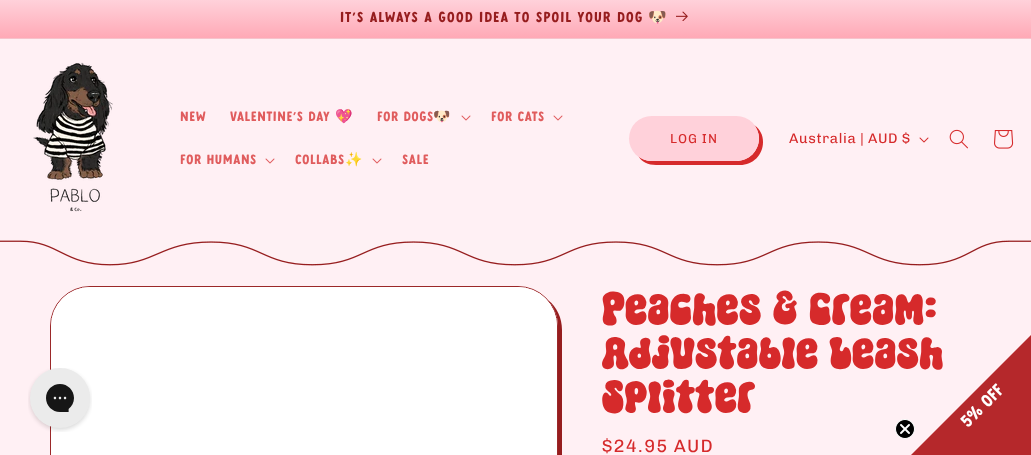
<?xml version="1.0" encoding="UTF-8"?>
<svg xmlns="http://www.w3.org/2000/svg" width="1031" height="455">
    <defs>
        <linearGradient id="g1" gradientUnits="userSpaceOnUse" x1="516" y1="0" x2="516" y2="38"><stop offset="0" stop-color="#FFD1DA"/><stop offset="1" stop-color="#FFA9B6"/></linearGradient>
    </defs>
    <rect width="100%" height="100%" fill="#FFF0F4"/>
    <rect x="0" y="0" width="1031" height="38" fill="url(#g1)"/>
    <rect x="0" y="38" width="1031" height="1" fill="#F7C2CB"/>
    <text x="340" y="22" font-family="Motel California" font-size="15" letter-spacing="1" fill="#961D1E">It's always a good idea to spoil your dog</text>
    <text x="648" y="22" font-family="Noto Color Emoji" font-size="15" letter-spacing="1" fill="#961D1E">🐶</text>
    <image x="676" y="11" width="12" height="10" href="img_01.png"/>
    <image x="33" y="62" width="80" height="150" href="img_02.png"/>
    <text x="180" y="121" font-family="Motel California" font-size="14" letter-spacing="0.6" fill="#E05C5D">New</text>
    <text x="230" y="121" font-family="Motel California" font-size="14" letter-spacing="0.6" fill="#E05C5D">Valentine's Day</text>
    <text x="335" y="121" font-family="Noto Color Emoji" font-size="14" letter-spacing="0.6" fill="#E05C5D">💖</text>
    <text x="377" y="121" font-family="Motel California" font-size="14" letter-spacing="0.6" fill="#E05C5D">For Dogs</text>
    <text x="433" y="121" font-family="Noto Color Emoji" font-size="14" letter-spacing="0.6" fill="#E05C5D">🐶</text>
    <image x="461" y="115" width="10" height="6" href="img_03.png"/>
    <text x="491" y="121" font-family="Motel California" font-size="14" letter-spacing="0.6" fill="#E05C5D">For Cats</text>
    <image x="553" y="115" width="10" height="6" href="img_03.png"/>
    <text x="180" y="164" font-family="Motel California" font-size="14" letter-spacing="0.6" fill="#E05C5D">For Humans</text>
    <image x="265" y="158" width="10" height="6" href="img_03.png"/>
    <text x="295" y="164" font-family="Motel California" font-size="14" letter-spacing="0.6" fill="#E05C5D">Collabs</text>
    <text x="345" y="164" font-family="Noto Color Emoji" font-size="14" letter-spacing="0.6" fill="#E05C5D">✨</text>
    <image x="372" y="158" width="10" height="6" href="img_03.png"/>
    <text x="402" y="164" font-family="Motel California" font-size="14" letter-spacing="0.6" fill="#E05C5D">Sale</text>
    <path d="M 638 156 C 642 162 648 165 656 165 H 740 C 753 165 763 155 763 142 C 763 135 760 129 754 125 C 757 129 759 133 759 138 C 759 151 749 161 736 161 H 652 C 646 161 642 159 638 156 Z" fill="#D62A2B"/>
    <rect x="629" y="116" width="130" height="45" rx="22.5" fill="#FFD1DA"/>
    <text x="670" y="143" font-family="Chivo" font-size="13" letter-spacing="1" fill="#D62A2B">LOG IN</text>
    <text x="789" y="143" font-family="Chivo" font-size="14" letter-spacing="0.6" fill="#D62A2B">Australia | AUD $</text>
    <image x="919" y="137" width="10" height="6" href="img_04.png"/>
    <image x="949" y="129" width="19" height="20" href="img_05.png"/>
    <image x="994" y="130" width="20" height="19" href="img_06.png"/>
    <image x="0" y="240" width="1031" height="26" href="img_07.png"/>
    <rect x="50.5" y="286.5" width="507" height="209" rx="39.5" fill="none" stroke="#9B2829"/>
    <image x="51" y="287" width="506" height="168" href="img_09.png"/>
    <image x="28" y="368" width="64" height="64" href="img_08.png"/>
    <path d="M 64 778 C 71 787 82 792 94 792 H 522 C 544 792 562 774 562 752 V 330 C 562 318 557 307 548 300 C 554 307 558 316 558 326 V 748 C 558 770 540 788 518 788 H 90 C 80 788 71 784 64 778 Z" fill="#961D1E"/>
    <text font-family="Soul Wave" font-size="40" letter-spacing="0.6" fill="#D62A2B">
        <tspan x="602" y="325">Peaches &amp; Cream:</tspan>
        <tspan x="602" y="369">Adjustable Leash</tspan>
        <tspan x="602" y="413">Splitter</tspan>
    </text>
    <text x="602" y="452" font-family="Chivo" font-size="18" letter-spacing="1.25" fill="#D62A2B">$24.95 AUD</text>
    <path d="M 911 455 H 1031 V 335 Z" fill="#B5282B"/>
    <text x="968" y="428" transform="rotate(-45 968 428)" font-family="Motel California" font-size="18" fill="#FFFFFF">5% Off</text>
    <image x="895" y="419" width="20" height="20" href="img_10.png"/>
</svg>
